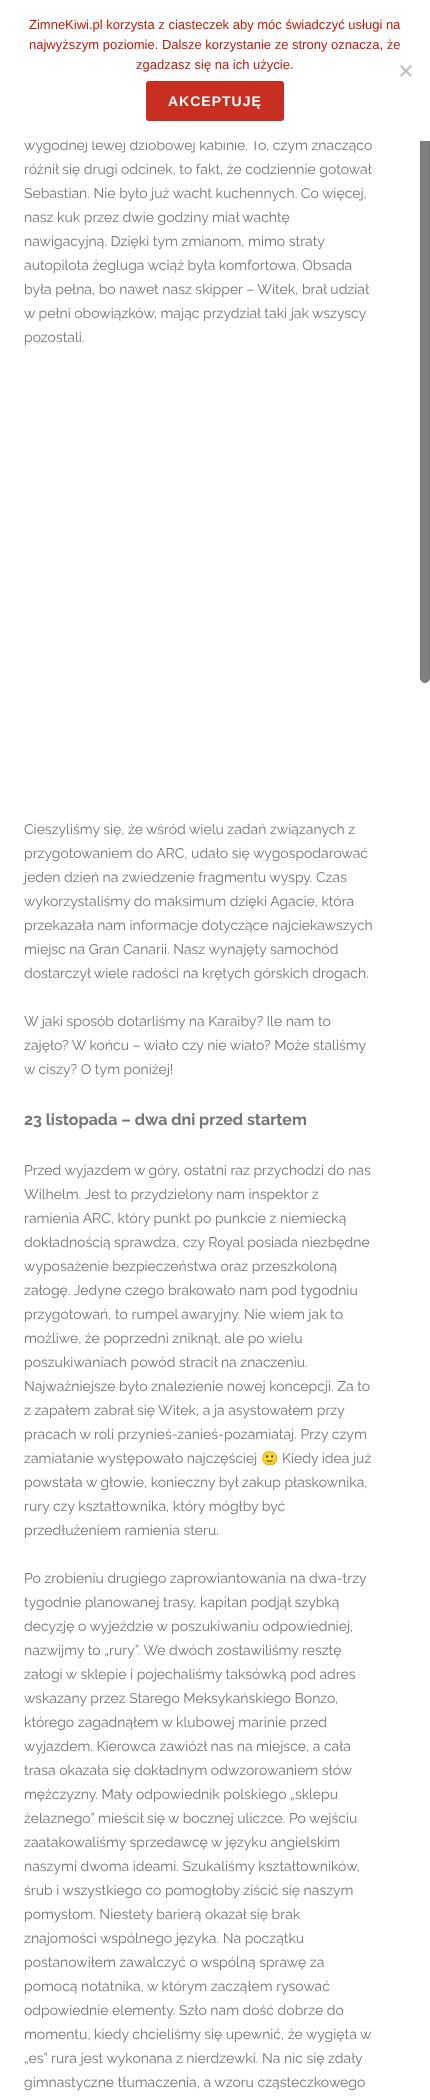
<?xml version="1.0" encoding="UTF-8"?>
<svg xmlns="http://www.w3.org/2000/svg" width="430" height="2100">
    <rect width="100%" height="100%" fill="#FFFFFF"/>
    <rect x="420.5" y="61.5" width="9" height="621" rx="4.5" fill="#808080" stroke="#767676"/>
    <text x="24" y="150" font-family="Raleway" font-size="14" fill="#747474">wygodnej lewej dziobowej kabinie. To, czym znacząco</text>
    <rect x="66" y="61" width="364" height="80" fill="#FFFFFF"/>
    <text font-family="Liberation Sans" font-size="13" fill="#C21807">
        <tspan x="29" y="29">ZimneKiwi.pl korzysta z ciasteczek aby móc świadczyć usługi na</tspan>
        <tspan x="29" y="49">najwyższym poziomie. Dalsze korzystanie ze strony oznacza, że</tspan>
    </text>
    <text x="136" y="69" font-family="Liberation Sans" font-size="13" fill="#C21807">zgadzasz się na ich użycie.</text>
    <path d="M 410.5 65 L 412 66.5 L 401.5 77 L 400 75.5 Z" fill="#C0C0C0"/>
    <path d="M 400 66.5 L 401.5 65 L 412 75.5 L 410.5 77 Z" fill="#C0C0C0"/>
    <rect x="146" y="81" width="138" height="40" rx="3" fill="#C82F20"/>
    <text x="168" y="106" font-family="Liberation Sans" font-size="14" font-weight="700" letter-spacing="1" fill="#FFFFFF">AKCEPTUJĘ</text>
    <text font-family="Raleway" font-size="14" fill="#747474">
        <tspan x="24" y="174">różnił się drugi odcinek, to fakt, że codziennie gotował</tspan>
        <tspan x="24" y="198">Sebastian. Nie było już wacht kuchennych. Co więcej,</tspan>
        <tspan x="24" y="222">nasz kuk przez dwie godziny miał wachtę</tspan>
        <tspan x="24" y="246">nawigacyjną. Dzięki tym zmianom, mimo straty</tspan>
        <tspan x="24" y="270">autopilota żegluga wciąż była komfortowa. Obsada</tspan>
        <tspan x="24" y="294">była pełna, bo nawet nasz skipper – Witek, brał udział</tspan>
        <tspan x="24" y="318">w pełni obowiązków, mając przydział taki jak wszyscy</tspan>
        <tspan x="24" y="342">pozostali.</tspan>
    </text>
    <text font-family="Raleway" font-size="14" fill="#747474">
        <tspan x="24" y="834">Cieszyliśmy się, że wśród wielu zadań związanych z</tspan>
        <tspan x="24" y="858">przygotowaniem do ARC, udało się wygospodarować</tspan>
        <tspan x="24" y="882">jeden dzień na zwiedzenie fragmentu wyspy. Czas</tspan>
        <tspan x="24" y="906">wykorzystaliśmy do maksimum dzięki Agacie, która</tspan>
        <tspan x="24" y="930">przekazała nam informacje dotyczące najciekawszych</tspan>
        <tspan x="24" y="954">miejsc na Gran Canarii. Nasz wynajęty samochód</tspan>
        <tspan x="24" y="978">dostarczył wiele radości na krętych górskich drogach.</tspan>
    </text>
    <text font-family="Raleway" font-size="14" fill="#747474">
        <tspan x="24" y="1026">W jaki sposób dotarliśmy na Karaiby? Ile nam to</tspan>
        <tspan x="24" y="1050">zajęło? W końcu – wiało czy nie wiało? Może staliśmy</tspan>
        <tspan x="24" y="1074">w ciszy? O tym poniżej!</tspan>
    </text>
    <text x="24" y="1125" font-family="Raleway" font-size="16" font-weight="700" fill="#747474">23 listopada – dwa dni przed startem</text>
    <text font-family="Raleway" font-size="14" fill="#747474">
        <tspan x="24" y="1175">Przed wyjazdem w góry, ostatni raz przychodzi do nas</tspan>
        <tspan x="24" y="1199">Wilhelm. Jest to przydzielony nam inspektor z</tspan>
        <tspan x="24" y="1223">ramienia ARC, który punkt po punkcie z niemiecką</tspan>
        <tspan x="24" y="1247">dokładnością sprawdza, czy Royal posiada niezbędne</tspan>
        <tspan x="24" y="1271">wyposażenie bezpieczeństwa oraz przeszkoloną</tspan>
        <tspan x="24" y="1295">załogę. Jedyne czego brakowało nam pod tygodniu</tspan>
        <tspan x="24" y="1319">przygotowań, to rumpel awaryjny. Nie wiem jak to</tspan>
        <tspan x="24" y="1343">możliwe, że poprzedni zniknął, ale po wielu</tspan>
        <tspan x="24" y="1367">poszukiwaniach powód stracił na znaczeniu.</tspan>
        <tspan x="24" y="1391">Najważniejsze było znalezienie nowej koncepcji. Za to</tspan>
        <tspan x="24" y="1415">z zapałem zabrał się Witek, a ja asystowałem przy</tspan>
        <tspan x="24" y="1439">pracach w roli przynieś-zanieś-pozamiataj. Przy czym</tspan>
        <tspan x="24" y="1463">zamiatanie występowało najczęściej</tspan>
    </text>
    <text x="261" y="1463" font-family="Noto Color Emoji" font-size="14" fill="#747474">🙂</text>
    <text x="282" y="1463" font-family="Raleway" font-size="14" fill="#747474">Kiedy idea już</text>
    <text font-family="Raleway" font-size="14" fill="#747474">
        <tspan x="24" y="1487">powstała w głowie, konieczny był zakup płaskownika,</tspan>
        <tspan x="24" y="1511">rury czy kształtownika, który mógłby być</tspan>
        <tspan x="24" y="1535">przedłużeniem ramienia steru.</tspan>
    </text>
    <text font-family="Raleway" font-size="14" fill="#747474">
        <tspan x="24" y="1583">Po zrobieniu drugiego zaprowiantowania na dwa-trzy</tspan>
        <tspan x="24" y="1607">tygodnie planowanej trasy, kapitan podjął szybką</tspan>
        <tspan x="24" y="1631">decyzję o wyjeździe w poszukiwaniu odpowiedniej,</tspan>
        <tspan x="24" y="1655">nazwijmy to „rury”. We dwóch zostawiliśmy resztę</tspan>
        <tspan x="24" y="1679">załogi w sklepie i pojechaliśmy taksówką pod adres</tspan>
        <tspan x="24" y="1703">wskazany przez Starego Meksykańskiego Bonzo,</tspan>
        <tspan x="24" y="1727">którego zagadnąłem w klubowej marinie przed</tspan>
        <tspan x="24" y="1751">wyjazdem. Kierowca zawiózł nas na miejsce, a cała</tspan>
        <tspan x="24" y="1775">trasa okazała się dokładnym odwzorowaniem słów</tspan>
        <tspan x="24" y="1799">mężczyzny. Mały odpowiednik polskiego „sklepu</tspan>
        <tspan x="24" y="1823">żelaznego” mieścił się w bocznej uliczce. Po wejściu</tspan>
        <tspan x="24" y="1847">zaatakowaliśmy sprzedawcę w języku angielskim</tspan>
        <tspan x="24" y="1871">naszymi dwoma ideami. Szukaliśmy kształtowników,</tspan>
        <tspan x="24" y="1895">śrub i wszystkiego co pomogłoby ziścić się naszym</tspan>
        <tspan x="24" y="1919">pomysłom. Niestety barierą okazał się brak</tspan>
        <tspan x="24" y="1943">znajomości wspólnego języka. Na początku</tspan>
        <tspan x="24" y="1967">postanowiłem zawalczyć o wspólną sprawę za</tspan>
        <tspan x="24" y="1991">pomocą notatnika, w którym zacząłem rysować</tspan>
        <tspan x="24" y="2015">odpowiednie elementy. Szło nam dość dobrze do</tspan>
        <tspan x="24" y="2039">momentu, kiedy chcieliśmy się upewnić, że wygięta w</tspan>
        <tspan x="24" y="2063">„es” rura jest wykonana z nierdzewki. Na nic się zdały</tspan>
        <tspan x="24" y="2087">gimnastyczne tłumaczenia, a wzoru cząsteczkowego</tspan>
    </text>
</svg>
